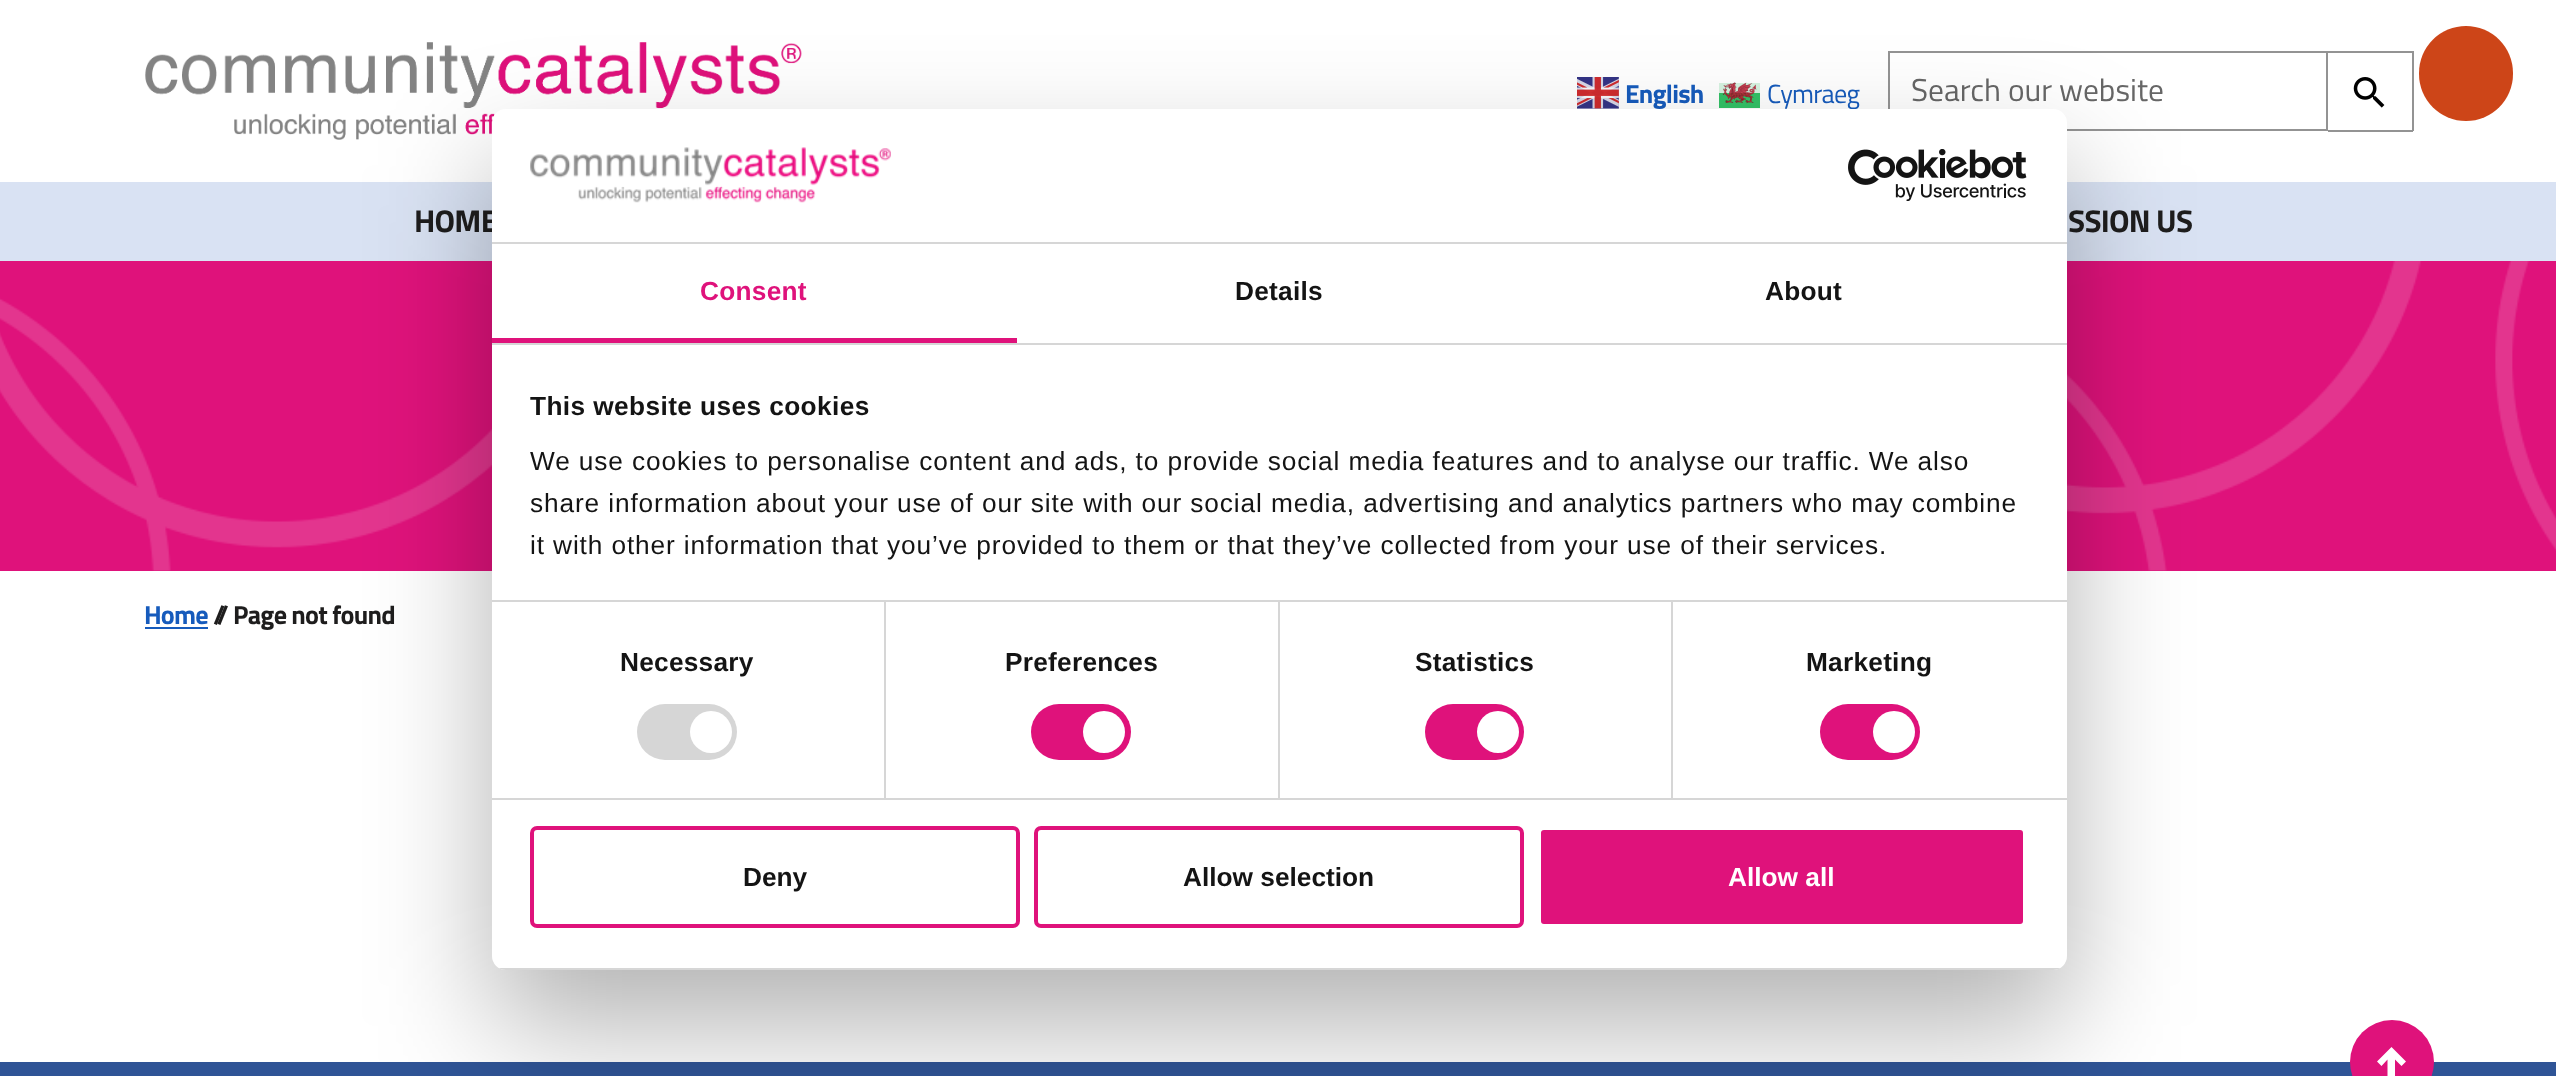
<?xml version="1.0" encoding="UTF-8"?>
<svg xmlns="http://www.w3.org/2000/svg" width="2556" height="1076">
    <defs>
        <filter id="blur1" x="-50%" y="-200%" width="200%" height="500%"><feGaussianBlur stdDeviation="59.5"/></filter>
        <clipPath id="clip1"><rect x="492" y="109" width="1575" height="861" rx="14"/></clipPath>
    </defs>
    <rect width="100%" height="100%" fill="#FFFFFF"/>
    <image x="145" y="42" width="657" height="98" href="img_01.png"/>
    <image x="1577" y="77" width="42" height="32" href="img_02.png"/>
    <text x="1625" y="103" font-family="Titillium Web" font-size="26.25" font-weight="700" letter-spacing="-0.75" fill="#165BBC">English</text>
    <image x="1719" y="82" width="41" height="26" href="img_03.png"/>
    <text x="1767" y="103" font-family="Titillium Web" font-size="26.25" letter-spacing="-0.75" fill="#165BBC">Cymraeg</text>
    <rect x="1889" y="52" width="438" height="78" fill="none" stroke="#939393" stroke-width="2"/>
    <text x="1911" y="101" font-family="Titillium Web" font-size="31.5" fill="#666666">Search our website</text>
    <rect x="2328" y="51" width="85" height="2" fill="#939393"/>
    <rect x="2412" y="51" width="2" height="80" fill="#939393"/>
    <rect x="2328" y="130" width="85" height="2" fill="#939393"/>
    <image x="2353" y="77" width="32" height="31" href="img_04.png"/>
    <rect x="2419" y="26" width="94" height="95" rx="47" fill="#CD4518"/>
    <rect x="0" y="182" width="2556" height="79" fill="#D9E2F3"/>
    <text x="414" y="232" font-family="Titillium Web" font-size="31.5" font-weight="700" letter-spacing="-0.75" fill="#1E1D1D">HOME</text>
    <text x="2068" y="232" font-family="Titillium Web" font-size="31.5" font-weight="700" letter-spacing="-0.75" fill="#1E1D1D">SSION US</text>
    <rect x="0" y="261" width="2556" height="310" fill="#DF127B"/>
    <image x="0" y="261" width="2556" height="310" href="img_05.png"/>
    <text x="144" y="624" font-family="Titillium Web" font-size="26.25" font-weight="700" letter-spacing="-0.75" fill="#165BBC">Home</text>
    <rect x="145" y="627" width="63" height="2" fill="#165BBC"/>
    <text x="213" y="624" font-family="Titillium Web" font-size="26.25" font-weight="700" letter-spacing="-0.75" fill="#1E1D1D">// Page not found</text>
    <rect x="0" y="1062" width="2556" height="14" fill="#2F5496"/>
    <rect x="492" y="165" width="1575" height="861" rx="14" fill="#000000" fill-opacity="0.3" filter="url(#blur1)"/>
    <rect x="492" y="109" width="1575" height="861" rx="14" fill="#FFFFFF"/>
    <rect x="492" y="242" width="1575" height="2" fill="#D6D6D6"/>
    <image x="530" y="147" width="361" height="56" href="img_06.png"/>
    <image x="1848" y="149" width="179" height="52" href="img_07.png"/>
    <rect x="492" y="343" width="1575" height="2" fill="#D6D6D6"/>
    <rect x="492" y="338" width="525" height="5" fill="#DF127B"/>
    <text x="700" y="300" font-family="Liberation Sans" font-size="26.25" font-weight="700" letter-spacing="0.25" fill="#DF127B">Consent</text>
    <text x="1235" y="300" font-family="Liberation Sans" font-size="26.25" font-weight="700" letter-spacing="0.25" fill="#141414">Details</text>
    <text x="1765" y="300" font-family="Liberation Sans" font-size="26.25" font-weight="700" letter-spacing="0.25" fill="#141414">About</text>
    <rect x="492" y="600" width="1575" height="2" fill="#D6D6D6"/>
    <text x="530" y="415" font-family="Liberation Sans" font-size="26.25" font-weight="700" letter-spacing="0.4" fill="#141414">This website uses cookies</text>
    <text font-family="Liberation Sans" font-size="26.25" letter-spacing="0.88" fill="#141414">
        <tspan x="530" y="470">We use cookies to personalise content and ads, to provide social media features and to analyse our traffic. We also</tspan>
        <tspan x="530" y="512">share information about your use of our site with our social media, advertising and analytics partners who may combine</tspan>
        <tspan x="530" y="554">it with other information that you’ve provided to them or that they’ve collected from your use of their services.</tspan>
    </text>
    <rect x="492" y="798" width="1575" height="2" fill="#D6D6D6"/>
    <rect x="884" y="602" width="2" height="196" fill="#D6D6D6"/>
    <text x="620" y="671" font-family="Liberation Sans" font-size="26.25" font-weight="700" letter-spacing="0.25" fill="#141414">Necessary</text>
    <rect x="637" y="704" width="100" height="56" rx="28" fill="#D6D6D6"/>
    <circle cx="711" cy="732" r="21" fill="#FFFFFF"/>
    <rect x="1278" y="602" width="2" height="196" fill="#D6D6D6"/>
    <text x="1005" y="671" font-family="Liberation Sans" font-size="26.25" font-weight="700" letter-spacing="0.25" fill="#141414">Preferences</text>
    <rect x="1031" y="704" width="100" height="56" rx="28" fill="#DF127B"/>
    <circle cx="1104" cy="732" r="21" fill="#FFFFFF"/>
    <rect x="1671" y="602" width="2" height="196" fill="#D6D6D6"/>
    <text x="1415" y="671" font-family="Liberation Sans" font-size="26.25" font-weight="700" letter-spacing="0.25" fill="#141414">Statistics</text>
    <rect x="1425" y="704" width="99" height="56" rx="28" fill="#DF127B"/>
    <circle cx="1498" cy="732" r="21" fill="#FFFFFF"/>
    <text x="1806" y="671" font-family="Liberation Sans" font-size="26.25" font-weight="700" letter-spacing="0.25" fill="#141414">Marketing</text>
    <rect x="1820" y="704" width="100" height="56" rx="28" fill="#DF127B"/>
    <circle cx="1894" cy="732" r="21" fill="#FFFFFF"/>
    <g clip-path="url(#clip1)">
        <rect x="492" y="968" width="1575" height="2" fill="#D6D6D6"/>
    </g>
    <rect x="532" y="828" width="486" height="98" rx="5" fill="none" stroke="#DF127B" stroke-width="4"/>
    <text x="743" y="886" font-family="Liberation Sans" font-size="26.25" font-weight="700" fill="#141414">Deny</text>
    <rect x="1036" y="828" width="486" height="98" rx="5" fill="none" stroke="#DF127B" stroke-width="4"/>
    <text x="1183" y="886" font-family="Liberation Sans" font-size="26.25" font-weight="700" fill="#141414">Allow selection</text>
    <rect x="1539" y="828" width="486" height="98" rx="5" fill="#DF127B" stroke="#FFFFFF" stroke-width="4"/>
    <text x="1728" y="886" font-family="Liberation Sans" font-size="26.25" font-weight="700" fill="#FFFFFF">Allow all</text>
    <circle cx="2392" cy="1062" r="42" fill="#DF127B"/>
    <path d="M 2395 1076 H 2387.5 V 1059.5 L 2381.5 1066 L 2377 1061.5 L 2391.5 1047 L 2406 1061.5 L 2401.5 1066 L 2395 1059.5 Z" fill="#FFFFFF"/>
</svg>
